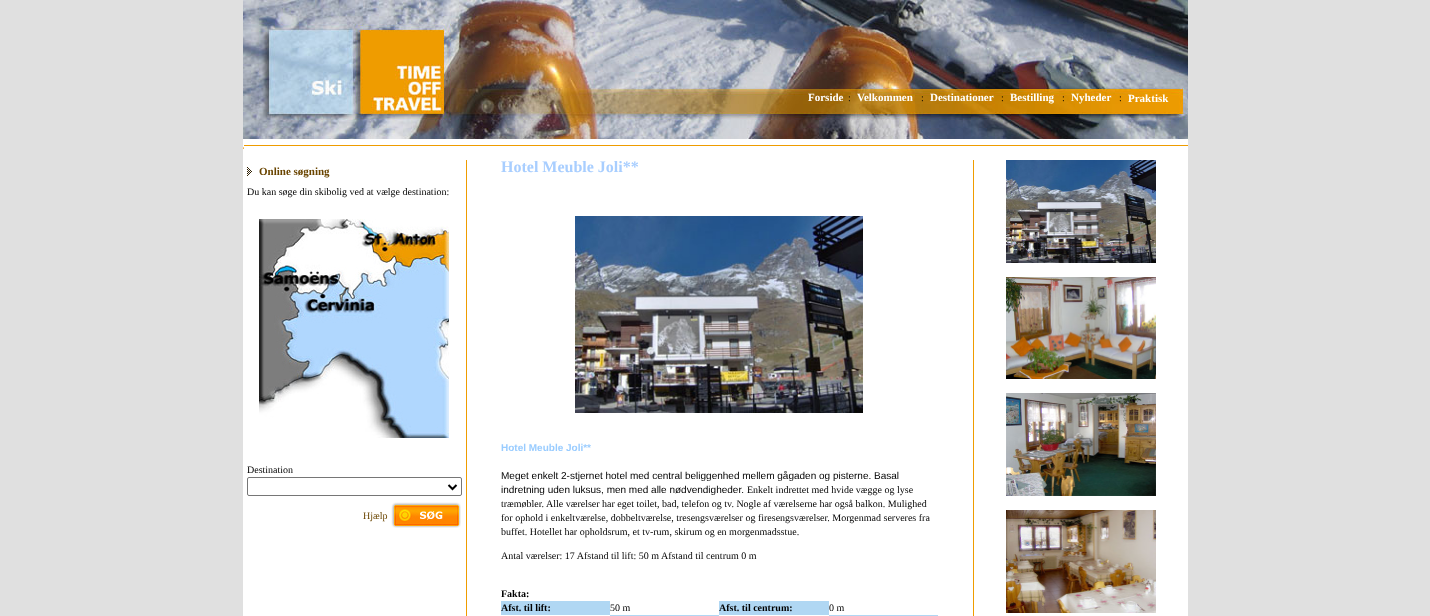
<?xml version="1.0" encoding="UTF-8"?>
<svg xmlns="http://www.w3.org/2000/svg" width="1430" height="616">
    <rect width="100%" height="100%" fill="#E0E0E0"/>
    <rect x="243" y="139" width="945" height="477" fill="#FFFFFF"/>
    <image x="243" y="0" width="945" height="139" href="img_01.png"/>
    <text x="808" y="101" font-family="Liberation Serif" font-size="11" font-weight="700" fill="#FFFFFF">Forside</text>
    <text x="848" y="101" font-family="Liberation Serif" font-size="10" fill="#000000">:</text>
    <text x="857" y="101" font-family="Liberation Serif" font-size="11" font-weight="700" fill="#FFFFFF">Velkommen</text>
    <text x="921" y="101" font-family="Liberation Serif" font-size="10" fill="#000000">:</text>
    <text x="930" y="101" font-family="Liberation Serif" font-size="11" font-weight="700" fill="#FFFFFF">Destinationer</text>
    <text x="1001" y="101" font-family="Liberation Serif" font-size="10" fill="#000000">:</text>
    <text x="1010" y="101" font-family="Liberation Serif" font-size="11" font-weight="700" fill="#FFFFFF">Bestilling</text>
    <text x="1062" y="101" font-family="Liberation Serif" font-size="10" fill="#000000">:</text>
    <text x="1071" y="101" font-family="Liberation Serif" font-size="11" font-weight="700" fill="#FFFFFF">Nyheder</text>
    <text x="1119" y="101" font-family="Liberation Serif" font-size="10" fill="#000000">:</text>
    <text x="1128" y="102" font-family="Liberation Serif" font-size="11" font-weight="700" fill="#FFFFFF">Praktisk</text>
    <rect x="243" y="145" width="945" height="1" fill="#EF9C00"/>
    <image x="243" y="145" width="1" height="4" href="img_02.png"/>
    <image x="247" y="167" width="5" height="9" href="img_03.png"/>
    <text x="259" y="175" font-family="Liberation Serif" font-size="11" font-weight="700" fill="#6A4500">Online søgning</text>
    <text x="247" y="195" font-family="Liberation Serif" font-size="10" fill="#000000">Du kan søge din skibolig ved at vælge destination:</text>
    <image x="259" y="219" width="190" height="219" href="img_04.png"/>
    <text x="247" y="473" font-family="Liberation Serif" font-size="10" fill="#000000">Destination</text>
    <rect x="247.5" y="477.5" width="214" height="18" rx="1.5" fill="none" stroke="#767676"/>
    <path d="M 448.5 485 L 452.5 489 L 456.5 485" fill="none" stroke="#000000" stroke-width="2"/>
    <text x="363" y="519" font-family="Liberation Serif" font-size="10" fill="#6A4500">Hjælp</text>
    <image x="391" y="502" width="70" height="26" href="img_05.png"/>
    <rect x="466" y="160" width="1" height="456" fill="#EF9C00"/>
    <text x="501" y="172" font-family="Liberation Serif" font-size="16" font-weight="700" fill="#A8CEFF">Hotel Meuble Joli**</text>
    <image x="575" y="216" width="288" height="197" href="img_06.png"/>
    <text x="501" y="451" font-family="Liberation Sans" font-size="10" font-weight="700" fill="#99CCFF">Hotel Meuble Joli**</text>
    <text font-family="Liberation Sans" font-size="10" fill="#000000">
        <tspan x="501" y="479">Meget enkelt 2-stjernet hotel med central beliggenhed mellem gågaden og pisterne. Basal</tspan>
        <tspan x="501" y="493">indretning uden luksus, men med alle nødvendigheder.</tspan>
    </text>
    <text x="747" y="493" font-family="Liberation Serif" font-size="10" fill="#000000">Enkelt indrettet med hvide vægge og lyse</text>
    <text font-family="Liberation Serif" font-size="10" fill="#000000">
        <tspan x="501" y="507">træmøbler. Alle værelser har eget toilet, bad, telefon og tv. Nogle af værelserne har også balkon. Mulighed</tspan>
        <tspan x="501" y="521">for ophold i enkeltværelse, dobbeltværelse, tresengsværelser og firesengsværelser. Morgenmad serveres fra</tspan>
        <tspan x="501" y="535">buffet. Hotellet har opholdsrum, et tv-rum, skirum og en morgenmadsstue.</tspan>
    </text>
    <text x="501" y="559" font-family="Liberation Serif" font-size="10" fill="#000000">Antal værelser: 17 Afstand til lift: 50 m Afstand til centrum 0 m</text>
    <text x="501" y="597" font-family="Liberation Serif" font-size="10" font-weight="700" fill="#000000">Fakta:</text>
    <rect x="501" y="601" width="109" height="14" fill="#B0D7F3"/>
    <text x="501" y="611" font-family="Liberation Serif" font-size="10" font-weight="700" fill="#000000">Afst. til lift:</text>
    <text x="610" y="611" font-family="Liberation Serif" font-size="10" fill="#000000">50 m</text>
    <rect x="719" y="601" width="110" height="14" fill="#B0D7F3"/>
    <text x="719" y="611" font-family="Liberation Serif" font-size="10" font-weight="700" fill="#000000">Afst. til centrum:</text>
    <text x="829" y="611" font-family="Liberation Serif" font-size="10" fill="#000000">0 m</text>
    <rect x="610" y="615" width="109" height="1" fill="#B0D7F4"/>
    <rect x="829" y="615" width="109" height="1" fill="#B0D7F4"/>
    <rect x="973" y="160" width="1" height="456" fill="#EF9C00"/>
    <image x="1006" y="160" width="150" height="103" href="img_07.png"/>
    <image x="1006" y="277" width="150" height="102" href="img_08.png"/>
    <image x="1006" y="393" width="150" height="103" href="img_09.png"/>
    <image x="1006" y="510" width="150" height="103" href="img_10.png"/>
</svg>
